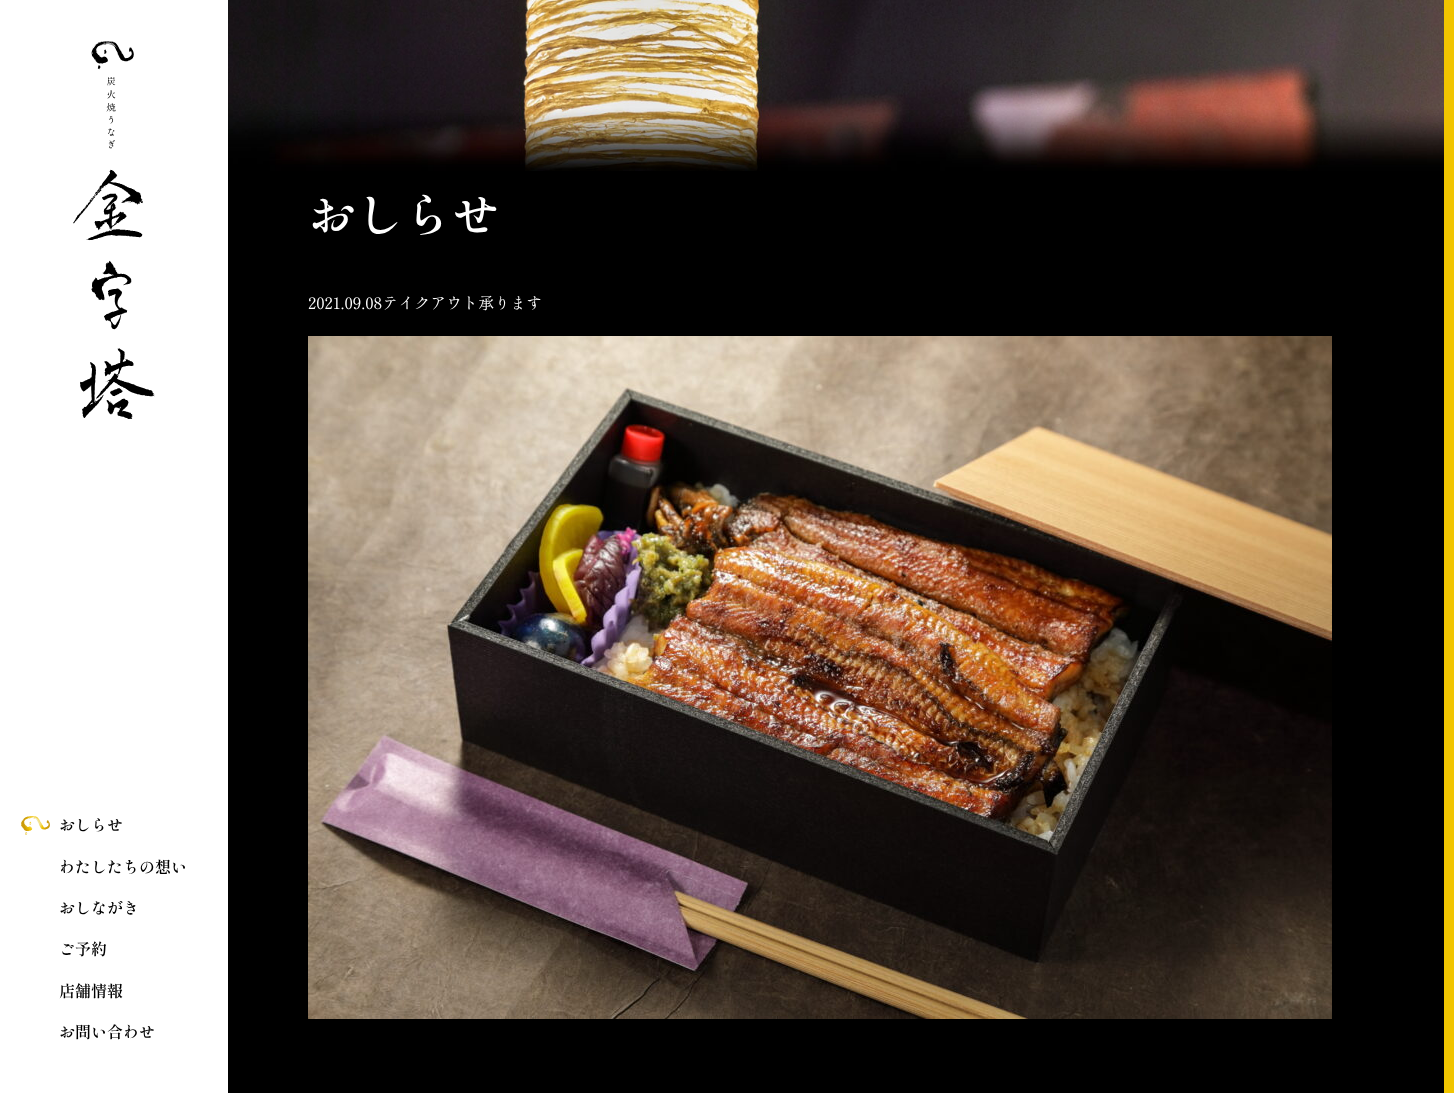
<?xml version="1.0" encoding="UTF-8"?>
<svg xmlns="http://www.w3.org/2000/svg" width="1454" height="1093">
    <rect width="100%" height="100%" fill="#000000"/>
    <rect x="1444" y="0" width="10" height="1093" fill="#F1C500"/>
    <image x="228" y="0" width="1216" height="171" href="img_01.png"/>
    <text x="308" y="233" font-family="Shippori Mincho" font-size="48" font-weight="600" fill="#FFFFFF">おしらせ</text>
    <text x="308" y="309" font-family="Shippori Mincho" font-size="16" fill="#FFFFFF">2021.09.08テイクアウト承ります</text>
    <image x="308" y="336" width="1024" height="683" href="img_02.png"/>
    <rect x="0" y="0" width="228" height="1093" fill="#FFFFFF"/>
    <image x="73" y="41" width="82" height="378" href="img_03.png"/>
    <image x="21" y="816" width="29" height="19" href="img_04.png"/>
    <text x="59" y="831" font-family="Shippori Mincho" font-size="16" font-weight="600" fill="#000000">おしらせ</text>
    <text x="59" y="873" font-family="Shippori Mincho" font-size="16" font-weight="600" fill="#000000">わたしたちの想い</text>
    <text x="59" y="914" font-family="Shippori Mincho" font-size="16" font-weight="600" fill="#000000">おしながき</text>
    <text x="59" y="955" font-family="Shippori Mincho" font-size="16" font-weight="600" fill="#000000">ご予約</text>
    <text x="59" y="997" font-family="Shippori Mincho" font-size="16" font-weight="600" fill="#000000">店舗情報</text>
    <text x="59" y="1038" font-family="Shippori Mincho" font-size="16" font-weight="600" fill="#000000">お問い合わせ</text>
</svg>
